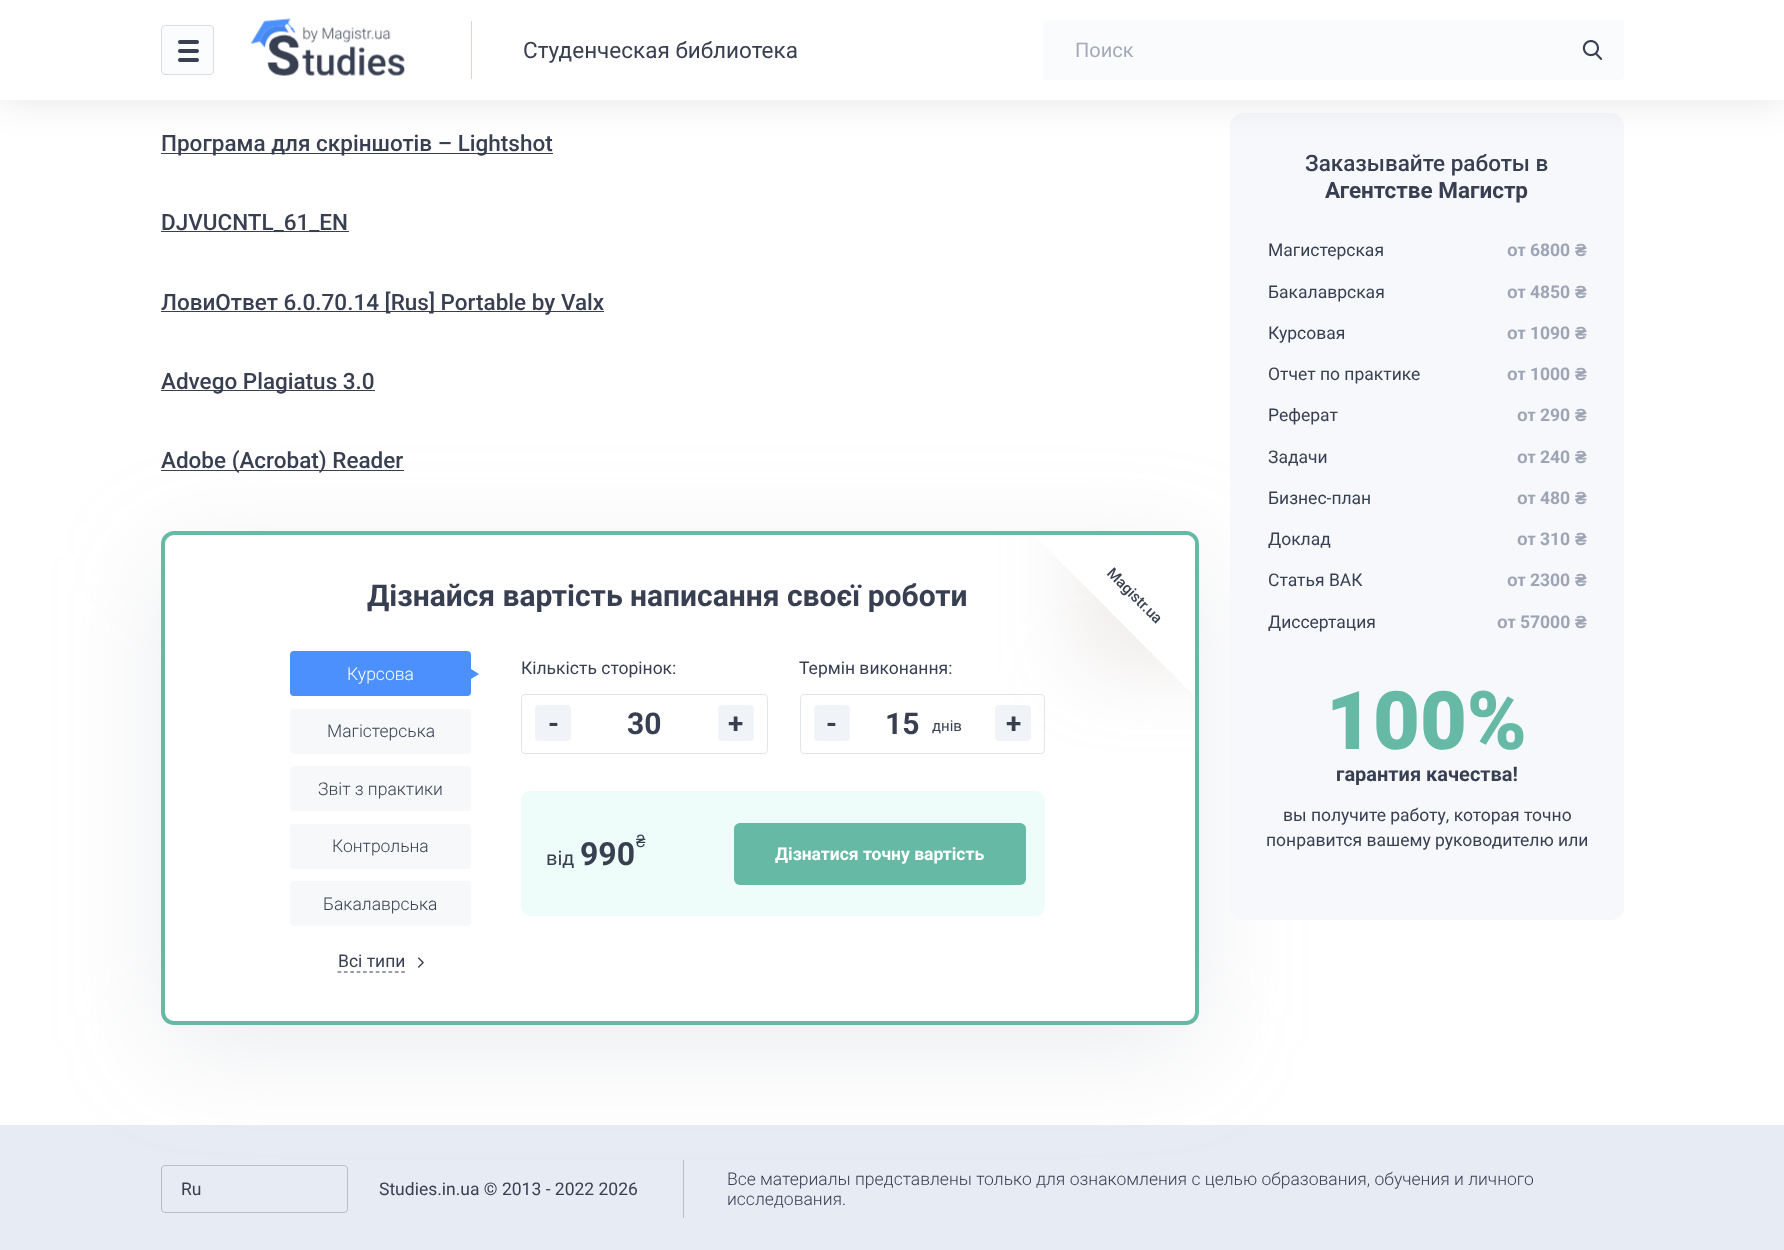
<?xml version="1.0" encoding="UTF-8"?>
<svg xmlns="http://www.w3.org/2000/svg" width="1784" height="1250">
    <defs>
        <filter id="blur1" x="-50%" y="-200%" width="200%" height="500%"><feGaussianBlur stdDeviation="50"/></filter>
        <clipPath id="clip1"><rect x="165" y="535" width="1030" height="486" rx="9"/></clipPath>
        <filter id="blur2" x="-50%" y="-200%" width="200%" height="500%"><feGaussianBlur stdDeviation="37"/></filter>
        <filter id="blur3" x="-50%" y="-200%" width="200%" height="500%"><feGaussianBlur stdDeviation="19"/></filter>
    </defs>
    <rect width="100%" height="100%" fill="#FFFFFF"/>
    <rect x="161" y="153" width="392" height="1" fill="#373F51"/>
    <rect x="161" y="470" width="243" height="1" fill="#373F51"/>
    <rect x="0" y="1125" width="1784" height="125" fill="#E7ECF4"/>
    <rect x="683" y="1160" width="1" height="58" fill="#B8BEC7"/>
    <rect x="161" y="556" width="1038" height="494" rx="13" fill="#BEC3CC" fill-opacity="0.3" filter="url(#blur1)"/>
    <rect x="163" y="533" width="1034" height="490" rx="11" fill="#FFFFFF" stroke="#65B9A5" stroke-width="4"/>
    <rect x="800.5" y="694.5" width="244" height="59" rx="3.5" fill="none" stroke="#E0E6EA"/>
    <rect x="995" y="705" width="36" height="36" rx="4" fill="#F0F3F7"/>
    <g clip-path="url(#clip1)">
        <rect x="1078" y="421" width="250" height="250" fill="#CCC0BE" fill-opacity="0.3" filter="url(#blur2)"/>
    </g>
    <rect x="1230" y="113" width="394" height="807" rx="13" fill="#F6F8FC"/>
    <rect x="0" y="0" width="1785" height="100" fill="#000000" fill-opacity="0.1" filter="url(#blur3)"/>
    <rect x="0" y="0" width="1784" height="100" fill="#FFFFFF"/>
    <rect x="161.5" y="25.5" width="52" height="49" rx="3.5" fill="#FAFCFE" stroke="#DADEE1"/>
    <rect x="178" y="40" width="21" height="4" rx="2" fill="#373F50"/>
    <rect x="178" y="49" width="21" height="4" rx="2" fill="#373F50"/>
    <rect x="178" y="58" width="21" height="4" rx="2" fill="#373F50"/>
    <image x="251" y="18" width="154" height="58" href="img_01.png"/>
    <rect x="471" y="21" width="1" height="58" fill="#DDD5CF"/>
    <text x="523" y="58" font-family="Roboto" font-size="22.5" fill="#373F51">Студенческая библиотека</text>
    <rect x="1043" y="20" width="581" height="60" rx="4" fill="#F9FBFD"/>
    <text x="1075" y="57" font-family="Roboto" font-size="20" fill="#A3AAB9">Поиск</text>
    <image x="1582" y="40" width="21" height="20" href="img_02.png"/>
    <text x="161" y="151" font-family="Roboto" font-size="22.5" font-weight="500" fill="#373F51">Програма для скріншотів – Lightshot</text>
    <rect x="161" y="231" width="188" height="1" fill="#373F51"/>
    <text x="161" y="230" font-family="Roboto" font-size="22.5" font-weight="500" fill="#373F51">DJVUCNTL_61_EN</text>
    <rect x="161" y="311" width="443" height="1" fill="#373F51"/>
    <text x="161" y="310" font-family="Roboto" font-size="22.5" font-weight="500" fill="#373F51">ЛовиОтвет 6.0.70.14 [Rus] Portable by Valx</text>
    <rect x="161" y="390" width="214" height="1" fill="#373F51"/>
    <text x="161" y="389" font-family="Roboto" font-size="22.5" font-weight="500" fill="#373F51">Advego Plagiatus 3.0</text>
    <text x="161" y="468" font-family="Roboto" font-size="22.5" font-weight="500" fill="#373F51">Adobe (Acrobat) Reader</text>
    <text x="367" y="606" font-family="Roboto" font-size="30" font-weight="700" fill="#373F51">Дізнайся вартість написання своєї роботи</text>
    <rect x="290" y="651" width="181" height="45" rx="4" fill="#4C90FD"/>
    <text x="347" y="680" font-family="Roboto" font-size="17.5" font-weight="300" fill="#FFFFFF">Курсова</text>
    <path d="M 471 679 V 669 L 479 674 Z" fill="#4C90FD"/>
    <rect x="290" y="709" width="181" height="45" rx="4" fill="#F6F8FA"/>
    <text x="327" y="737" font-family="Roboto" font-size="17.5" font-weight="300" fill="#373F51">Магістерська</text>
    <rect x="290" y="766" width="181" height="45" rx="4" fill="#F6F8FA"/>
    <text x="318" y="795" font-family="Roboto" font-size="17.5" font-weight="300" fill="#373F51">Звіт з практики</text>
    <rect x="290" y="824" width="181" height="45" rx="4" fill="#F6F8FA"/>
    <text x="332" y="852" font-family="Roboto" font-size="17.5" font-weight="300" fill="#373F51">Контрольна</text>
    <rect x="290" y="881" width="181" height="45" rx="4" fill="#F6F8FA"/>
    <text x="323" y="910" font-family="Roboto" font-size="17.5" font-weight="300" fill="#373F51">Бакалаврська</text>
    <text x="338" y="967" font-family="Roboto" font-size="17.5" fill="#373F51">Всі типи</text>
    <path d="M 337.5 972 H 405" fill="none" stroke="#373F51" stroke-width="1.2" stroke-dasharray="3.75 2.62"/>
    <image x="418" y="957" width="6" height="11" href="img_03.png"/>
    <text x="521" y="674" font-family="Roboto" font-size="17.5" fill="#373F51">Кількість сторінок:</text>
    <rect x="521.5" y="694.5" width="246" height="59" rx="3.5" fill="none" stroke="#E0E6EA"/>
    <rect x="535" y="705" width="36" height="36" rx="4" fill="#F0F3F7"/>
    <text x="548" y="733" font-family="Roboto" font-size="28" font-weight="700" fill="#373F51">-</text>
    <text x="627" y="734" font-family="Roboto" font-size="30" font-weight="700" fill="#373F51">30</text>
    <rect x="718" y="705" width="36" height="36" rx="4" fill="#F0F3F7"/>
    <text x="728" y="733" font-family="Roboto" font-size="28" font-weight="700" fill="#373F51">+</text>
    <text x="799" y="674" font-family="Roboto" font-size="17.5" fill="#373F51">Термін виконання:</text>
    <rect x="814" y="705" width="36" height="36" rx="4" fill="#F0F3F7"/>
    <text x="826" y="733" font-family="Roboto" font-size="28" font-weight="700" fill="#373F51">-</text>
    <text x="885" y="734" font-family="Roboto" font-size="30" font-weight="700" fill="#373F51">15</text>
    <text x="932" y="731" font-family="Roboto" font-size="15" fill="#373F51">днів</text>
    <text x="1006" y="733" font-family="Roboto" font-size="28" font-weight="700" fill="#373F51">+</text>
    <rect x="521" y="791" width="524" height="125" rx="9" fill="#EEFDF9"/>
    <text x="546" y="865" font-family="Roboto" font-size="20" fill="#373F51">від</text>
    <text x="580" y="865" font-family="Roboto" font-size="32" font-weight="700" fill="#373F51">990</text>
    <text x="636" y="847" font-family="Liberation Sans" font-size="17" fill="#373F51">₴</text>
    <rect x="734" y="823" width="292" height="62" rx="6" fill="#65B9A5"/>
    <text x="775" y="860" font-family="Roboto" font-size="17.5" font-weight="700" fill="#FFFFFF">Дізнатися точну вартість</text>
    <path d="M 1195 697 L 1034 535 H 1186 C 1191 535 1195 539 1195 544 Z" fill="#FFFFFF"/>
    <text x="1106" y="574" transform="rotate(45 1106 574)" font-family="Roboto" font-size="15" font-weight="500" fill="#373F51">Magistr.ua</text>
    <text x="1305" y="171" font-family="Roboto" font-size="22.5" font-weight="500" fill="#373F51">Заказывайте работы в</text>
    <text x="1325" y="198" font-family="Roboto" font-size="22.5" font-weight="700" fill="#373F51">Агентстве Магистр</text>
    <text x="1268" y="256" font-family="Roboto" font-size="17.5" fill="#373F51">Магистерская</text>
    <text x="1507" y="256" font-family="Liberation Sans" font-size="17.5" font-weight="700" fill="#9DA4B4">от</text>
    <text x="1530" y="256" font-family="Roboto" font-size="17.5" font-weight="700" fill="#9DA4B4">6800</text>
    <text x="1575" y="256" font-family="Liberation Sans" font-size="17.5" font-weight="700" fill="#9DA4B4">₴</text>
    <text x="1268" y="298" font-family="Roboto" font-size="17.5" fill="#373F51">Бакалаврская</text>
    <text x="1507" y="298" font-family="Liberation Sans" font-size="17.5" font-weight="700" fill="#9DA4B4">от</text>
    <text x="1530" y="298" font-family="Roboto" font-size="17.5" font-weight="700" fill="#9DA4B4">4850</text>
    <text x="1575" y="298" font-family="Liberation Sans" font-size="17.5" font-weight="700" fill="#9DA4B4">₴</text>
    <text x="1268" y="339" font-family="Roboto" font-size="17.5" fill="#373F51">Курсовая</text>
    <text x="1507" y="339" font-family="Liberation Sans" font-size="17.5" font-weight="700" fill="#9DA4B4">от</text>
    <text x="1530" y="339" font-family="Roboto" font-size="17.5" font-weight="700" fill="#9DA4B4">1090</text>
    <text x="1575" y="339" font-family="Liberation Sans" font-size="17.5" font-weight="700" fill="#9DA4B4">₴</text>
    <text x="1268" y="380" font-family="Roboto" font-size="17.5" fill="#373F51">Отчет по практике</text>
    <text x="1507" y="380" font-family="Liberation Sans" font-size="17.5" font-weight="700" fill="#9DA4B4">от</text>
    <text x="1530" y="380" font-family="Roboto" font-size="17.5" font-weight="700" fill="#9DA4B4">1000</text>
    <text x="1575" y="380" font-family="Liberation Sans" font-size="17.5" font-weight="700" fill="#9DA4B4">₴</text>
    <text x="1268" y="421" font-family="Roboto" font-size="17.5" fill="#373F51">Реферат</text>
    <text x="1517" y="421" font-family="Liberation Sans" font-size="17.5" font-weight="700" fill="#9DA4B4">от</text>
    <text x="1540" y="421" font-family="Roboto" font-size="17.5" font-weight="700" fill="#9DA4B4">290</text>
    <text x="1575" y="421" font-family="Liberation Sans" font-size="17.5" font-weight="700" fill="#9DA4B4">₴</text>
    <text x="1268" y="463" font-family="Roboto" font-size="17.5" fill="#373F51">Задачи</text>
    <text x="1517" y="463" font-family="Liberation Sans" font-size="17.5" font-weight="700" fill="#9DA4B4">от</text>
    <text x="1540" y="463" font-family="Roboto" font-size="17.5" font-weight="700" fill="#9DA4B4">240</text>
    <text x="1575" y="463" font-family="Liberation Sans" font-size="17.5" font-weight="700" fill="#9DA4B4">₴</text>
    <text x="1268" y="504" font-family="Roboto" font-size="17.5" fill="#373F51">Бизнес-план</text>
    <text x="1517" y="504" font-family="Liberation Sans" font-size="17.5" font-weight="700" fill="#9DA4B4">от</text>
    <text x="1540" y="504" font-family="Roboto" font-size="17.5" font-weight="700" fill="#9DA4B4">480</text>
    <text x="1575" y="504" font-family="Liberation Sans" font-size="17.5" font-weight="700" fill="#9DA4B4">₴</text>
    <text x="1268" y="545" font-family="Roboto" font-size="17.5" fill="#373F51">Доклад</text>
    <text x="1517" y="545" font-family="Liberation Sans" font-size="17.5" font-weight="700" fill="#9DA4B4">от</text>
    <text x="1540" y="545" font-family="Roboto" font-size="17.5" font-weight="700" fill="#9DA4B4">310</text>
    <text x="1575" y="545" font-family="Liberation Sans" font-size="17.5" font-weight="700" fill="#9DA4B4">₴</text>
    <text x="1268" y="586" font-family="Roboto" font-size="17.5" fill="#373F51">Статья ВАК</text>
    <text x="1507" y="586" font-family="Liberation Sans" font-size="17.5" font-weight="700" fill="#9DA4B4">от</text>
    <text x="1530" y="586" font-family="Roboto" font-size="17.5" font-weight="700" fill="#9DA4B4">2300</text>
    <text x="1575" y="586" font-family="Liberation Sans" font-size="17.5" font-weight="700" fill="#9DA4B4">₴</text>
    <text x="1268" y="628" font-family="Roboto" font-size="17.5" fill="#373F51">Диссертация</text>
    <text x="1497" y="628" font-family="Liberation Sans" font-size="17.5" font-weight="700" fill="#9DA4B4">от</text>
    <text x="1520" y="628" font-family="Roboto" font-size="17.5" font-weight="700" fill="#9DA4B4">57000</text>
    <text x="1575" y="628" font-family="Liberation Sans" font-size="17.5" font-weight="700" fill="#9DA4B4">₴</text>
    <text x="1326" y="749" font-family="Roboto" font-size="81" font-weight="900" fill="#65B9A5">100%</text>
    <text x="1336" y="781" font-family="Roboto" font-size="20" font-weight="700" fill="#373F51">гарантия качества!</text>
    <text x="1283" y="821" font-family="Roboto" font-size="17.5" fill="#373F51">вы получите работу, которая точно</text>
    <text x="1266" y="846" font-family="Roboto" font-size="17.5" fill="#373F51">понравится вашему руководителю или</text>
    <rect x="161.5" y="1165.5" width="186" height="47" rx="3.5" fill="none" stroke="#B9BFC6"/>
    <text x="181" y="1195" font-family="Roboto" font-size="17.5" fill="#373F51">Ru</text>
    <text x="379" y="1195" font-family="Roboto" font-size="17.5" fill="#373F51">Studies.in.ua © 2013 - 2022 2026</text>
    <text font-family="Roboto" font-size="17.5" font-weight="300" fill="#373F51">
        <tspan x="727" y="1185">Все материалы представлены только для ознакомления с целью образования, обучения и личного</tspan>
        <tspan x="727" y="1205">исследования.</tspan>
    </text>
</svg>
